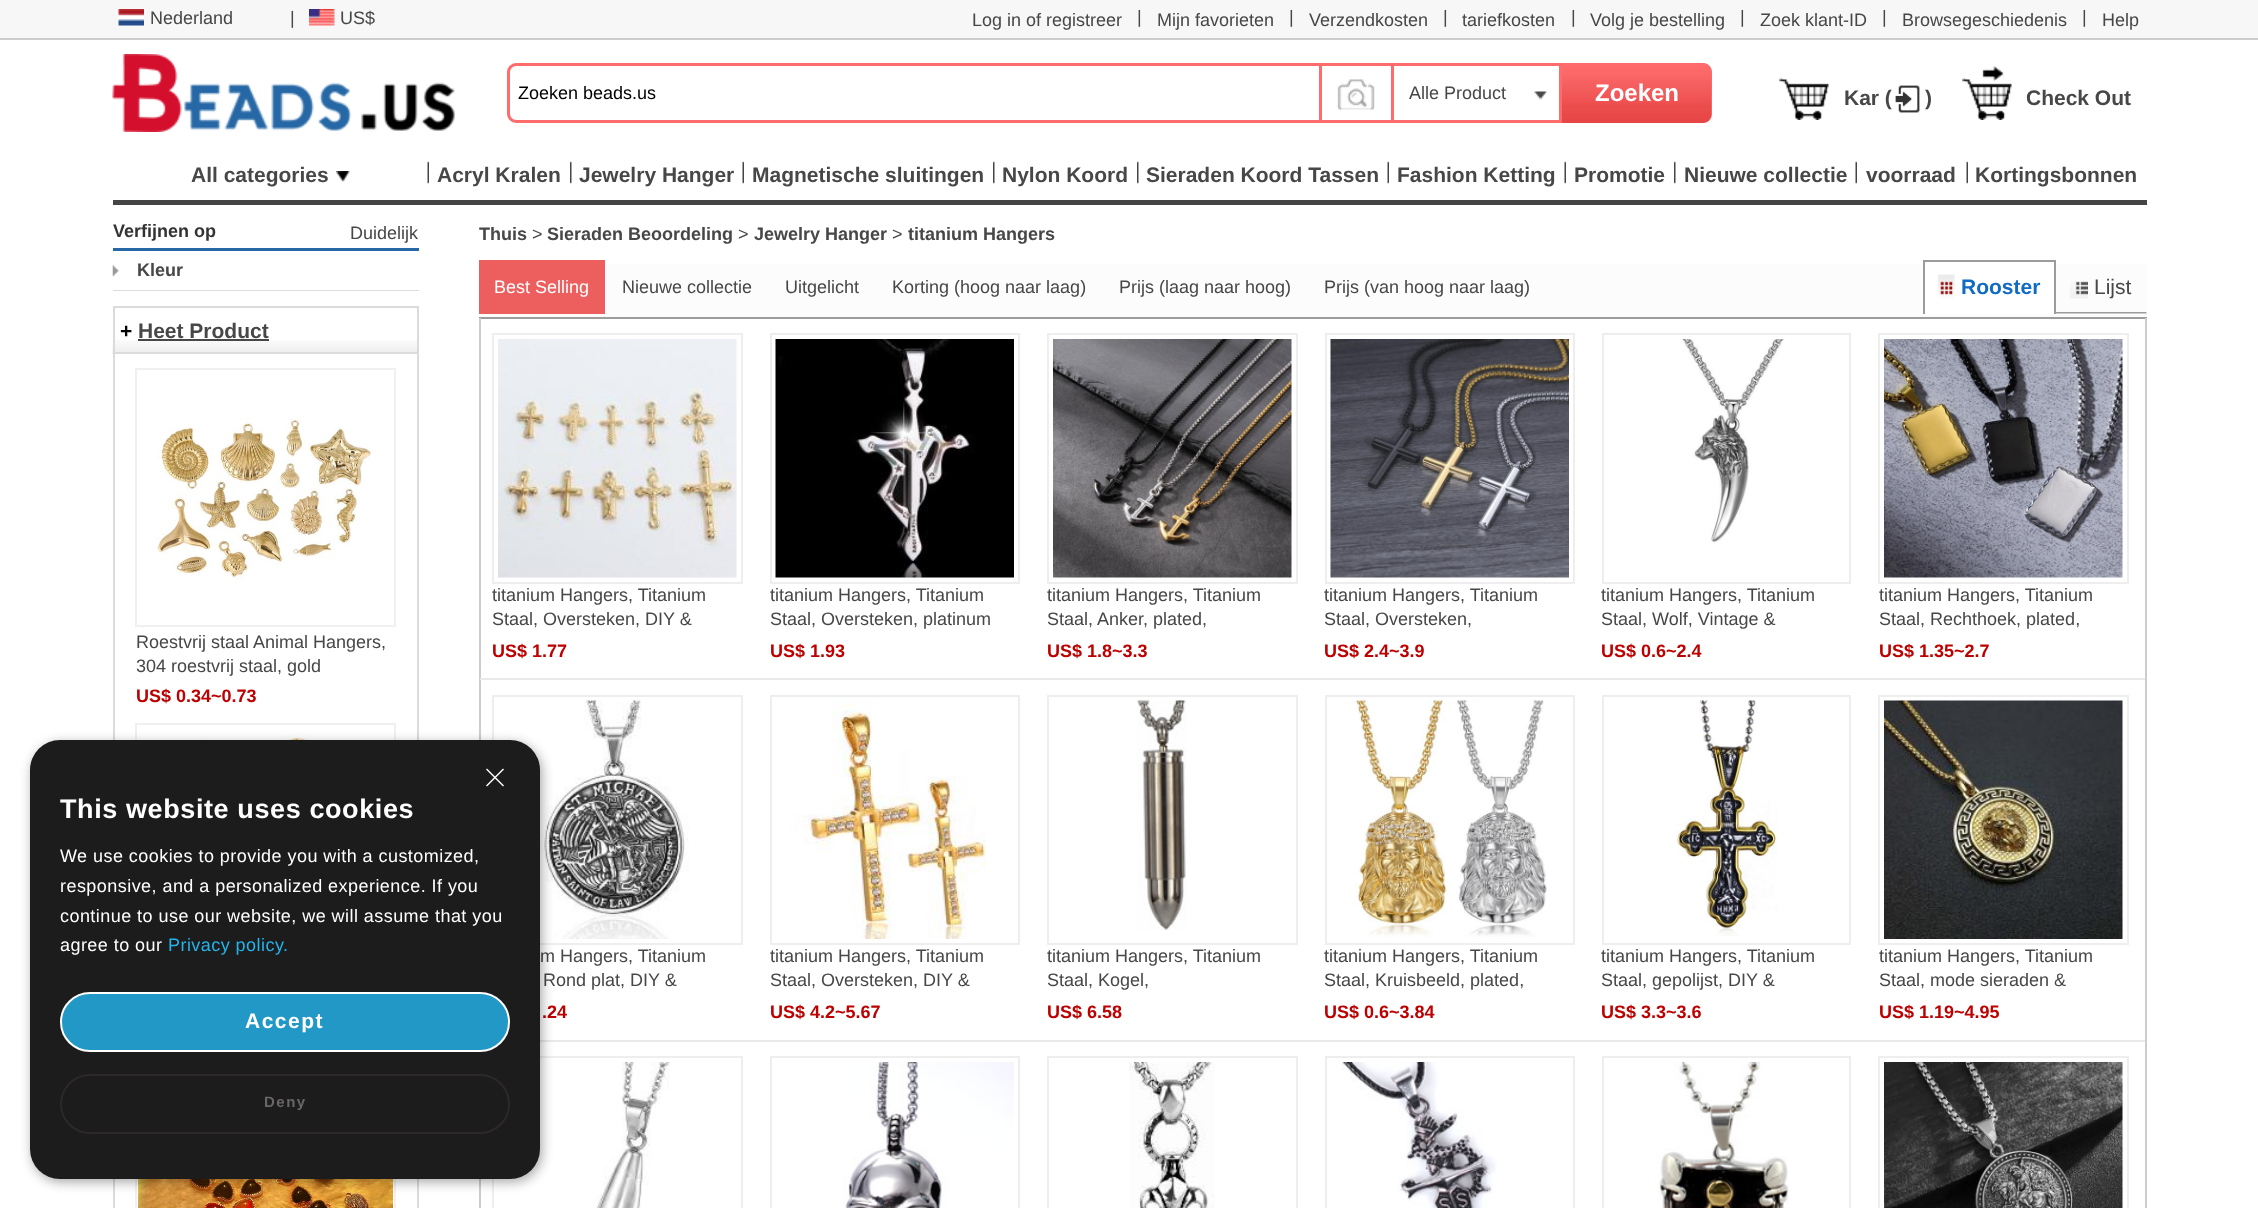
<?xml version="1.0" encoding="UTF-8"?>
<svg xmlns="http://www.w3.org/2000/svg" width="2258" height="1208">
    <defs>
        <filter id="blur1" x="-50%" y="-200%" width="200%" height="500%"><feGaussianBlur stdDeviation="6"/></filter>
    </defs>
    <rect width="100%" height="100%" fill="#FFFFFF"/>
    <rect x="0" y="0" width="2258" height="38" fill="#F7F7F7"/>
    <rect x="0" y="38" width="2258" height="2" fill="#CCCCCC"/>
    <image x="118" y="9" width="26" height="17" href="img_01.png"/>
    <text x="150" y="24" font-family="Liberation Sans" font-size="18" fill="#474747">Nederland</text>
    <text x="290" y="24" font-family="Liberation Sans" font-size="18" fill="#474747">|</text>
    <image x="309" y="9" width="26" height="17" href="img_02.png"/>
    <text x="340" y="24" font-family="Liberation Sans" font-size="18" fill="#474747">US$</text>
    <text x="972" y="26" font-family="Liberation Sans" font-size="18" fill="#474747">Log in of registreer</text>
    <text x="1137" y="23" font-family="Liberation Sans" font-size="18" fill="#474747">|</text>
    <text x="1157" y="26" font-family="Liberation Sans" font-size="18" fill="#474747">Mijn favorieten</text>
    <text x="1289" y="23" font-family="Liberation Sans" font-size="18" fill="#474747">|</text>
    <text x="1309" y="26" font-family="Liberation Sans" font-size="18" fill="#474747">Verzendkosten</text>
    <text x="1443" y="23" font-family="Liberation Sans" font-size="18" fill="#474747">|</text>
    <text x="1462" y="26" font-family="Liberation Sans" font-size="18" fill="#474747">tariefkosten</text>
    <text x="1571" y="23" font-family="Liberation Sans" font-size="18" fill="#474747">|</text>
    <text x="1590" y="26" font-family="Liberation Sans" font-size="18" fill="#474747">Volg je bestelling</text>
    <text x="1740" y="23" font-family="Liberation Sans" font-size="18" fill="#474747">|</text>
    <text x="1760" y="26" font-family="Liberation Sans" font-size="18" fill="#474747">Zoek klant-ID</text>
    <text x="1882" y="23" font-family="Liberation Sans" font-size="18" fill="#474747">|</text>
    <text x="1902" y="26" font-family="Liberation Sans" font-size="18" fill="#474747">Browsegeschiedenis</text>
    <text x="2082" y="23" font-family="Liberation Sans" font-size="18" fill="#474747">|</text>
    <text x="2102" y="26" font-family="Liberation Sans" font-size="18" fill="#474747">Help</text>
    <image x="112" y="54" width="343" height="78" href="img_03.png"/>
    <path d="M 516 64.5 H 1320.5 V 121.5 H 516 C 512 121.5 508.5 118 508.5 114 V 72 C 508.5 68 512 64.5 516 64.5 Z" fill="none" stroke="#FF6C6C" stroke-width="3"/>
    <text x="518" y="99" font-family="Liberation Sans" font-size="18" fill="#000000">Zoeken beads.us</text>
    <rect x="1322" y="63" width="240" height="3" fill="#FF6C6C"/>
    <rect x="1391" y="63" width="3" height="60" fill="#FF6C6C"/>
    <rect x="1322" y="120" width="72" height="3" fill="#FF6C6C"/>
    <image x="1337" y="79" width="38" height="31" href="img_04.png"/>
    <path d="M 1562 63 H 1703 C 1708 63 1712 67 1712 72 V 114 C 1712 119 1708 123 1703 123 H 1562 Z" fill="#FF6C6C"/>
    <image x="1562" y="63" width="150" height="60" href="img_05.png"/>
    <text x="1595" y="101" font-family="Liberation Sans" font-size="24" font-weight="700" fill="#FFFFFF">Zoeken</text>
    <image x="1534" y="91" width="13" height="9" href="img_06.png"/>
    <rect x="1559" y="63" width="3" height="60" fill="#FF6C6C"/>
    <rect x="1394" y="120" width="168" height="3" fill="#FF6C6C"/>
    <text x="1409" y="99" font-family="Liberation Sans" font-size="18" fill="#474747">Alle Product</text>
    <image x="1779" y="77" width="50" height="43" href="img_07.png"/>
    <text x="1844" y="105" font-family="Liberation Sans" font-size="21" font-weight="700" fill="#474747">Kar (</text>
    <image x="1895" y="85" width="26" height="28" href="img_08.png"/>
    <text x="1925" y="105" font-family="Liberation Sans" font-size="21" font-weight="700" fill="#474747">)</text>
    <image x="1962" y="66" width="50" height="54" href="img_09.png"/>
    <text x="2026" y="105" font-family="Liberation Sans" font-size="21" font-weight="700" fill="#474747">Check Out</text>
    <rect x="113" y="200" width="2034" height="5" fill="#454545"/>
    <text x="191" y="182" font-family="Liberation Sans" font-size="21" font-weight="700" fill="#474747">All categories</text>
    <image x="336" y="171" width="14" height="11" href="img_10.png"/>
    <image x="427" y="161" width="2" height="23" href="img_11.png"/>
    <text x="437" y="182" font-family="Liberation Sans" font-size="21" font-weight="700" fill="#474747">Acryl Kralen</text>
    <image x="570" y="161" width="2" height="23" href="img_12.png"/>
    <text x="579" y="182" font-family="Liberation Sans" font-size="21" font-weight="700" fill="#474747">Jewelry Hanger</text>
    <image x="742" y="161" width="2" height="23" href="img_11.png"/>
    <text x="752" y="182" font-family="Liberation Sans" font-size="21" font-weight="700" fill="#474747">Magnetische sluitingen</text>
    <image x="993" y="161" width="2" height="23" href="img_12.png"/>
    <text x="1002" y="182" font-family="Liberation Sans" font-size="21" font-weight="700" fill="#474747">Nylon Koord</text>
    <image x="1137" y="161" width="2" height="23" href="img_12.png"/>
    <text x="1146" y="182" font-family="Liberation Sans" font-size="21" font-weight="700" fill="#474747">Sieraden Koord Tassen</text>
    <image x="1387" y="161" width="2" height="23" href="img_11.png"/>
    <text x="1397" y="182" font-family="Liberation Sans" font-size="21" font-weight="700" fill="#474747">Fashion Ketting</text>
    <image x="1564" y="161" width="2" height="23" href="img_11.png"/>
    <text x="1574" y="182" font-family="Liberation Sans" font-size="21" font-weight="700" fill="#474747">Promotie</text>
    <image x="1674" y="161" width="2" height="23" href="img_12.png"/>
    <text x="1684" y="182" font-family="Liberation Sans" font-size="21" font-weight="700" fill="#474747">Nieuwe collectie</text>
    <image x="1855" y="161" width="2" height="23" href="img_11.png"/>
    <text x="1866" y="182" font-family="Liberation Sans" font-size="21" font-weight="700" fill="#474747">voorraad</text>
    <image x="1966" y="161" width="2" height="23" href="img_11.png"/>
    <text x="1975" y="182" font-family="Liberation Sans" font-size="21" font-weight="700" fill="#474747">Kortingsbonnen</text>
    <rect x="113" y="248" width="306" height="3" fill="#2667A5"/>
    <text x="113" y="237" font-family="Liberation Sans" font-size="18" font-weight="700" fill="#333333">Verfijnen op</text>
    <text x="350" y="239" font-family="Liberation Sans" font-size="18" fill="#474747">Duidelijk</text>
    <image x="112" y="265" width="7" height="12" href="img_13.png"/>
    <text x="137" y="276" font-family="Liberation Sans" font-size="18" font-weight="700" fill="#474747">Kleur</text>
    <rect x="113" y="290" width="306" height="1" fill="#DDDDDD"/>
    <image x="112" y="340" width="305" height="14" href="img_14.png"/>
    <rect x="114" y="307" width="304" height="46" fill="none" stroke="#DCDBDC" stroke-width="2"/>
    <text x="120" y="338" font-family="Liberation Sans" font-size="21" font-weight="700" fill="#000000">+</text>
    <text x="138" y="338" font-family="Liberation Sans" font-size="21" font-weight="700" fill="#474747">Heet Product</text>
    <rect x="138" y="339" width="131" height="2" fill="#474747"/>
    <rect x="417" y="354" width="2" height="854" fill="#DCDBDC"/>
    <rect x="113" y="354" width="2" height="854" fill="#DCDBDC"/>
    <rect x="136" y="369" width="259" height="257" fill="none" stroke="#F0F0F0" stroke-width="2"/>
    <image x="155" y="419" width="217" height="162" href="img_15.png"/>
    <text font-family="Liberation Sans" font-size="18" fill="#474747">
        <tspan x="136" y="648">Roestvrij staal Animal Hangers,</tspan>
        <tspan x="136" y="672">304 roestvrij staal, gold</tspan>
    </text>
    <text x="136" y="702" font-family="Liberation Sans" font-size="18" font-weight="700" fill="#BD0000">US$ 0.34~0.73</text>
    <rect x="136" y="724" width="259" height="258" fill="none" stroke="#F0F0F0" stroke-width="2"/>
    <image x="162" y="734" width="224" height="6" href="img_16.png"/>
    <rect x="136" y="1080" width="259" height="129" fill="none" stroke="#F0F0F0" stroke-width="2"/>
    <image x="138" y="1179" width="255" height="29" href="img_17.png"/>
    <text x="479" y="240" font-family="Liberation Sans" font-size="18" font-weight="700" fill="#474747">Thuis</text>
    <text x="532" y="240" font-family="Liberation Sans" font-size="18" fill="#474747">&gt;</text>
    <text x="547" y="240" font-family="Liberation Sans" font-size="18" font-weight="700" fill="#474747">Sieraden Beoordeling</text>
    <text x="738" y="240" font-family="Liberation Sans" font-size="18" fill="#474747">&gt;</text>
    <text x="754" y="240" font-family="Liberation Sans" font-size="18" font-weight="700" fill="#474747">Jewelry Hanger</text>
    <text x="892" y="240" font-family="Liberation Sans" font-size="18" fill="#474747">&gt;</text>
    <text x="908" y="240" font-family="Liberation Sans" font-size="18" font-weight="700" fill="#474747">titanium Hangers</text>
    <rect x="479" y="264" width="1668" height="53" fill="#FCFCFC"/>
    <rect x="479" y="317" width="1668" height="2" fill="#9C9C9C"/>
    <rect x="479" y="260" width="126" height="54" fill="#ED5F5F"/>
    <text x="494" y="293" font-family="Liberation Sans" font-size="18" fill="#FFFFFF">Best Selling</text>
    <text x="622" y="293" font-family="Liberation Sans" font-size="18" fill="#474747">Nieuwe collectie</text>
    <text x="785" y="293" font-family="Liberation Sans" font-size="18" fill="#474747">Uitgelicht</text>
    <text x="892" y="293" font-family="Liberation Sans" font-size="18" fill="#474747">Korting (hoog naar laag)</text>
    <text x="1119" y="293" font-family="Liberation Sans" font-size="18" fill="#474747">Prijs (laag naar hoog)</text>
    <text x="1324" y="293" font-family="Liberation Sans" font-size="18" fill="#474747">Prijs (van hoog naar laag)</text>
    <image x="2056" y="312" width="91" height="2" href="img_18.png"/>
    <rect x="1925" y="264" width="129" height="50" fill="#FFFFFF"/>
    <rect x="1923" y="260" width="132" height="2" fill="#9C9C9C"/>
    <rect x="2054" y="260" width="2" height="54" fill="#9C9C9C"/>
    <rect x="1923" y="260" width="2" height="54" fill="#9C9C9C"/>
    <image x="1938" y="274" width="17" height="25" href="img_19.png"/>
    <text x="1961" y="294" font-family="Liberation Sans" font-size="21" font-weight="700" fill="#0F6BC3">Rooster</text>
    <image x="2070" y="281" width="18" height="18" href="img_20.png"/>
    <text x="2094" y="294" font-family="Liberation Sans" font-size="21" fill="#474747">Lijst</text>
    <rect x="2145" y="318" width="2" height="890" fill="#CCCCCC"/>
    <rect x="479" y="318" width="2" height="890" fill="#CCCCCC"/>
    <rect x="480" y="678" width="1665" height="2" fill="#E9E9E9"/>
    <rect x="493" y="334" width="249" height="249" fill="none" stroke="#EEEEEE" stroke-width="2"/>
    <image x="498" y="339" width="239" height="239" href="img_21.png"/>
    <text font-family="Liberation Sans" font-size="18" fill="#474747">
        <tspan x="492" y="601">titanium Hangers, Titanium</tspan>
        <tspan x="492" y="625">Staal, Oversteken, DIY &amp;</tspan>
    </text>
    <text x="492" y="657" font-family="Liberation Sans" font-size="18" font-weight="700" fill="#BD0000">US$ 1.77</text>
    <rect x="771" y="334" width="248" height="249" fill="none" stroke="#EEEEEE" stroke-width="2"/>
    <image x="775" y="339" width="239" height="239" href="img_22.png"/>
    <text font-family="Liberation Sans" font-size="18" fill="#474747">
        <tspan x="770" y="601">titanium Hangers, Titanium</tspan>
        <tspan x="770" y="625">Staal, Oversteken, platinum</tspan>
    </text>
    <text x="770" y="657" font-family="Liberation Sans" font-size="18" font-weight="700" fill="#BD0000">US$ 1.93</text>
    <rect x="1048" y="334" width="249" height="249" fill="none" stroke="#EEEEEE" stroke-width="2"/>
    <image x="1053" y="339" width="239" height="239" href="img_23.png"/>
    <text font-family="Liberation Sans" font-size="18" fill="#474747">
        <tspan x="1047" y="601">titanium Hangers, Titanium</tspan>
        <tspan x="1047" y="625">Staal, Anker, plated,</tspan>
    </text>
    <text x="1047" y="657" font-family="Liberation Sans" font-size="18" font-weight="700" fill="#BD0000">US$ 1.8~3.3</text>
    <rect x="1326" y="334" width="248" height="249" fill="none" stroke="#EEEEEE" stroke-width="2"/>
    <image x="1330" y="339" width="239" height="239" href="img_24.png"/>
    <text font-family="Liberation Sans" font-size="18" fill="#474747">
        <tspan x="1324" y="601">titanium Hangers, Titanium</tspan>
        <tspan x="1324" y="625">Staal, Oversteken,</tspan>
    </text>
    <text x="1324" y="657" font-family="Liberation Sans" font-size="18" font-weight="700" fill="#BD0000">US$ 2.4~3.9</text>
    <rect x="1603" y="334" width="247" height="249" fill="none" stroke="#EEEEEE" stroke-width="2"/>
    <image x="1682" y="339" width="103" height="204" href="img_25.png"/>
    <text font-family="Liberation Sans" font-size="18" fill="#474747">
        <tspan x="1601" y="601">titanium Hangers, Titanium</tspan>
        <tspan x="1601" y="625">Staal, Wolf, Vintage &amp;</tspan>
    </text>
    <text x="1601" y="657" font-family="Liberation Sans" font-size="18" font-weight="700" fill="#BD0000">US$ 0.6~2.4</text>
    <rect x="1879" y="334" width="249" height="249" fill="none" stroke="#EEEEEE" stroke-width="2"/>
    <image x="1884" y="339" width="239" height="239" href="img_26.png"/>
    <text font-family="Liberation Sans" font-size="18" fill="#474747">
        <tspan x="1879" y="601">titanium Hangers, Titanium</tspan>
        <tspan x="1879" y="625">Staal, Rechthoek, plated,</tspan>
    </text>
    <text x="1879" y="657" font-family="Liberation Sans" font-size="18" font-weight="700" fill="#BD0000">US$ 1.35~2.7</text>
    <rect x="540" y="1040" width="1605" height="2" fill="#E9E9E9"/>
    <rect x="493" y="696" width="249" height="248" fill="none" stroke="#EEEEEE" stroke-width="2"/>
    <image x="539" y="700" width="150" height="239" href="img_27.png"/>
    <text x="540" y="962" font-family="Liberation Sans" font-size="18" fill="#474747">m Hangers, Titanium</text>
    <text x="543" y="986" font-family="Liberation Sans" font-size="18" fill="#474747">Rond plat, DIY &amp;</text>
    <text x="542" y="1018" font-family="Liberation Sans" font-size="18" font-weight="700" fill="#BD0000">.24</text>
    <rect x="771" y="696" width="248" height="248" fill="none" stroke="#EEEEEE" stroke-width="2"/>
    <image x="795" y="700" width="192" height="239" href="img_28.png"/>
    <text font-family="Liberation Sans" font-size="18" fill="#474747">
        <tspan x="770" y="962">titanium Hangers, Titanium</tspan>
        <tspan x="770" y="986">Staal, Oversteken, DIY &amp;</tspan>
    </text>
    <text x="770" y="1018" font-family="Liberation Sans" font-size="18" font-weight="700" fill="#BD0000">US$ 4.2~5.67</text>
    <rect x="1048" y="696" width="249" height="248" fill="none" stroke="#EEEEEE" stroke-width="2"/>
    <image x="1137" y="700" width="50" height="230" href="img_29.png"/>
    <text font-family="Liberation Sans" font-size="18" fill="#474747">
        <tspan x="1047" y="962">titanium Hangers, Titanium</tspan>
        <tspan x="1047" y="986">Staal, Kogel,</tspan>
    </text>
    <text x="1047" y="1018" font-family="Liberation Sans" font-size="18" font-weight="700" fill="#BD0000">US$ 6.58</text>
    <rect x="1326" y="696" width="248" height="248" fill="none" stroke="#EEEEEE" stroke-width="2"/>
    <image x="1353" y="700" width="195" height="237" href="img_30.png"/>
    <text font-family="Liberation Sans" font-size="18" fill="#474747">
        <tspan x="1324" y="962">titanium Hangers, Titanium</tspan>
        <tspan x="1324" y="986">Staal, Kruisbeeld, plated,</tspan>
    </text>
    <text x="1324" y="1018" font-family="Liberation Sans" font-size="18" font-weight="700" fill="#BD0000">US$ 0.6~3.84</text>
    <rect x="1603" y="696" width="247" height="248" fill="none" stroke="#EEEEEE" stroke-width="2"/>
    <image x="1676" y="700" width="102" height="236" href="img_31.png"/>
    <text font-family="Liberation Sans" font-size="18" fill="#474747">
        <tspan x="1601" y="962">titanium Hangers, Titanium</tspan>
        <tspan x="1601" y="986">Staal, gepolijst, DIY &amp;</tspan>
    </text>
    <text x="1601" y="1018" font-family="Liberation Sans" font-size="18" font-weight="700" fill="#BD0000">US$ 3.3~3.6</text>
    <rect x="1879" y="696" width="249" height="248" fill="none" stroke="#EEEEEE" stroke-width="2"/>
    <image x="1884" y="700" width="239" height="239" href="img_32.png"/>
    <text font-family="Liberation Sans" font-size="18" fill="#474747">
        <tspan x="1879" y="962">titanium Hangers, Titanium</tspan>
        <tspan x="1879" y="986">Staal, mode sieraden &amp;</tspan>
    </text>
    <text x="1879" y="1018" font-family="Liberation Sans" font-size="18" font-weight="700" fill="#BD0000">US$ 1.19~4.95</text>
    <rect x="493" y="1057" width="249" height="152" fill="none" stroke="#EEEEEE" stroke-width="2"/>
    <image x="596" y="1062" width="74" height="146" href="img_33.png"/>
    <rect x="771" y="1057" width="248" height="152" fill="none" stroke="#EEEEEE" stroke-width="2"/>
    <image x="842" y="1062" width="172" height="146" href="img_34.png"/>
    <rect x="1048" y="1057" width="249" height="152" fill="none" stroke="#EEEEEE" stroke-width="2"/>
    <image x="1129" y="1062" width="86" height="146" href="img_35.png"/>
    <rect x="1326" y="1057" width="248" height="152" fill="none" stroke="#EEEEEE" stroke-width="2"/>
    <image x="1341" y="1062" width="156" height="146" href="img_36.png"/>
    <rect x="1603" y="1057" width="247" height="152" fill="none" stroke="#EEEEEE" stroke-width="2"/>
    <image x="1657" y="1062" width="132" height="146" href="img_37.png"/>
    <rect x="1879" y="1057" width="249" height="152" fill="none" stroke="#EEEEEE" stroke-width="2"/>
    <image x="1884" y="1062" width="239" height="146" href="img_38.png"/>
    <rect x="32" y="743" width="510" height="439" rx="30" fill="#000000" fill-opacity="0.35" filter="url(#blur1)"/>
    <rect x="30" y="740" width="510" height="439" rx="30" fill="#1C1C1C"/>
    <path d="M 503 768.5 L 504 769.5 L 487 786.5 L 486 785.5 Z" fill="#FFFFFF"/>
    <path d="M 487 768.5 L 504 785.5 L 503 786.5 L 486 769.5 Z" fill="#FFFFFF"/>
    <text x="60" y="818" font-family="Liberation Sans" font-size="27" font-weight="700" letter-spacing="0.6" fill="#FFFFFF">This website uses cookies</text>
    <text font-family="Liberation Sans" font-size="18" letter-spacing="0.45" fill="#FFFFFF">
        <tspan x="60" y="862">We use cookies to provide you with a customized,</tspan>
        <tspan x="60" y="892">responsive, and a personalized experience. If you</tspan>
        <tspan x="60" y="922">continue to use our website, we will assume that you</tspan>
        <tspan x="60" y="951">agree to our</tspan>
    </text>
    <text x="168" y="951" font-family="Liberation Sans" font-size="18" letter-spacing="0.45" fill="#22B4EC">Privacy policy.</text>
    <rect x="61" y="993" width="448" height="58" rx="29" fill="#2198C6" stroke="#FFFFFF" stroke-width="2"/>
    <text x="245" y="1028" font-family="Liberation Sans" font-size="21" font-weight="700" letter-spacing="1.5" fill="#FFFFFF">Accept</text>
    <rect x="61" y="1075" width="448" height="58" rx="29" fill="none" stroke="#2D2929" stroke-width="2"/>
    <text x="264" y="1107" font-family="Liberation Sans" font-size="15" font-weight="700" letter-spacing="1.5" fill="#696666">Deny</text>
</svg>
